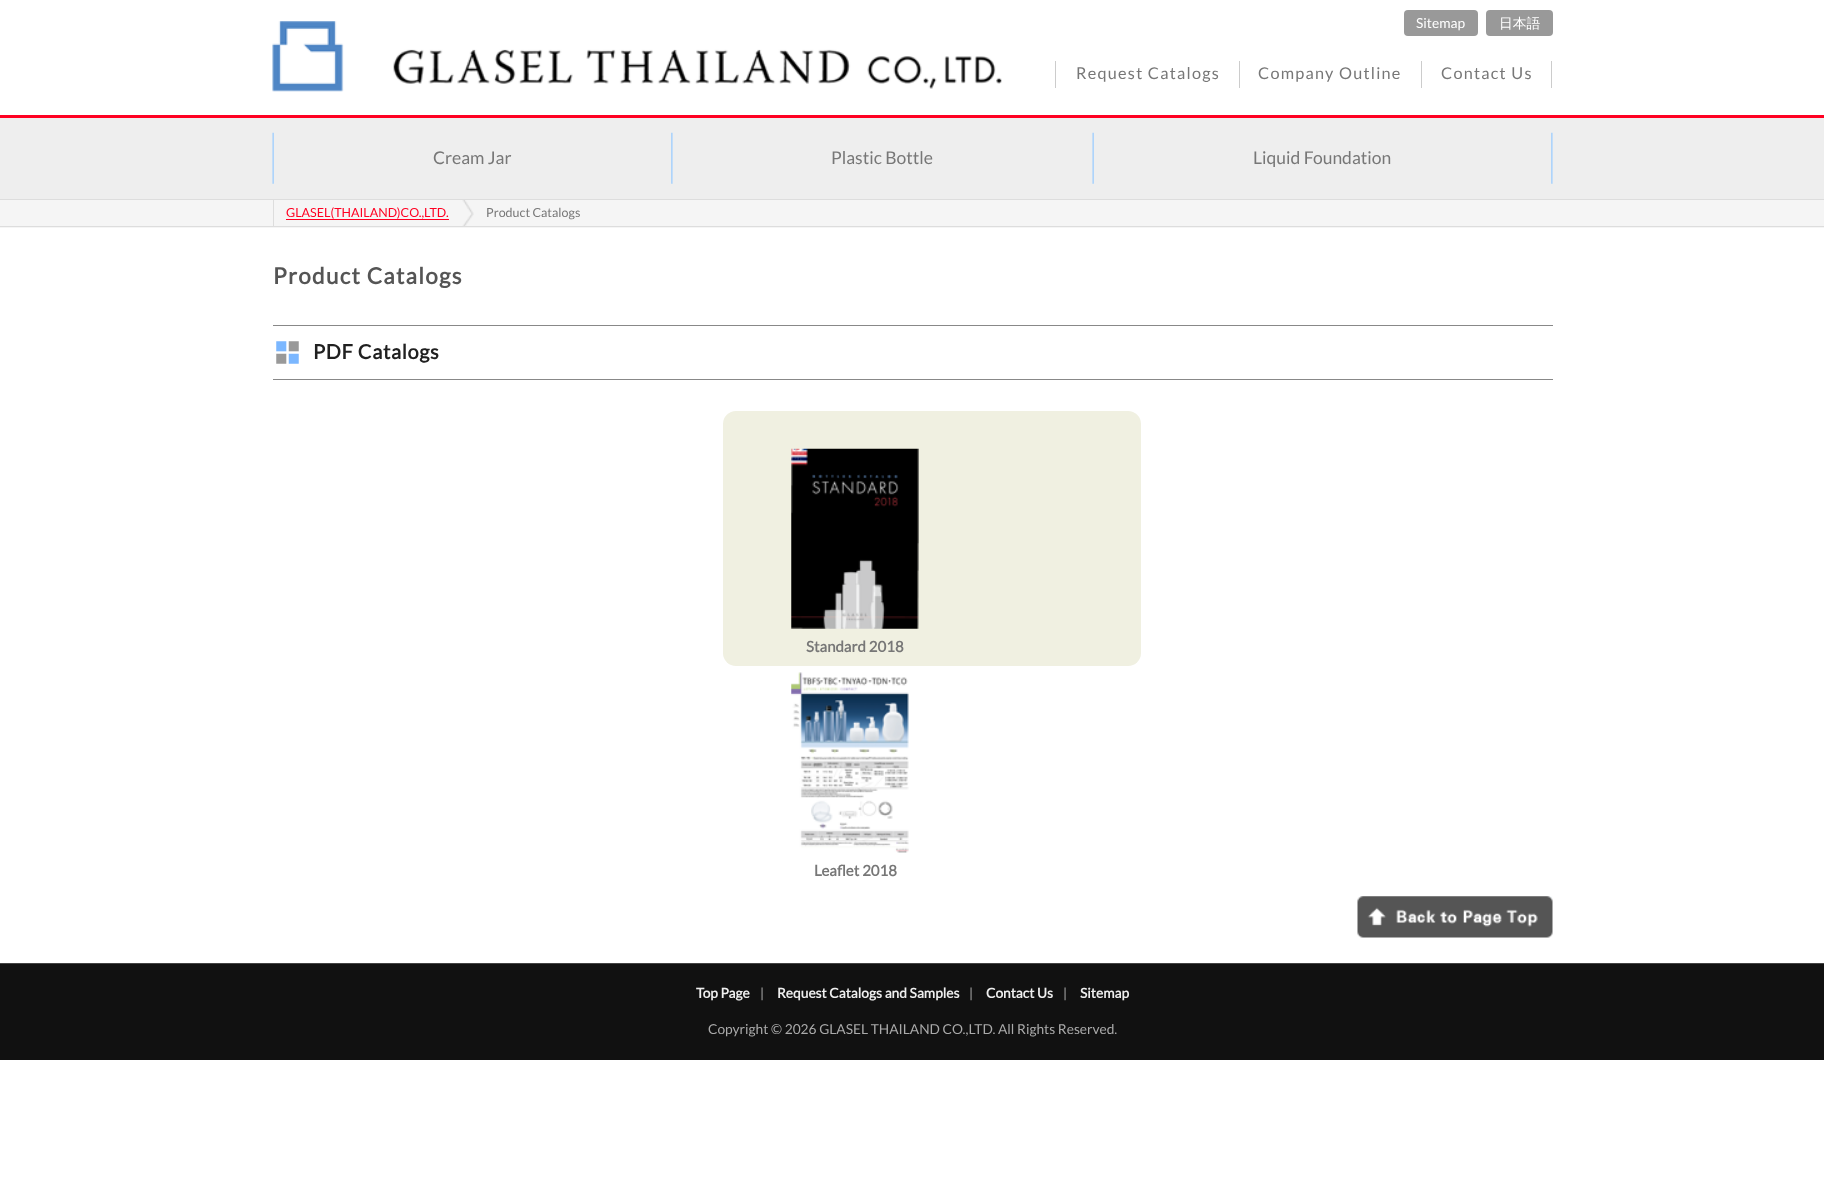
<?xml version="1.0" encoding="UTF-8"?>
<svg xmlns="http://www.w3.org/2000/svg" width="1824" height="1202">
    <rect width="100%" height="100%" fill="#FFFFFF"/>
    <rect x="1404" y="10" width="74" height="26" rx="4" fill="#999999"/>
    <text x="1416" y="28" font-family="Lato" font-size="13.75" fill="#FFFFFF">Sitemap</text>
    <rect x="1486" y="10" width="67" height="26" rx="4" fill="#999999"/>
    <text x="1499" y="28" font-family="WenQuanYi Zen Hei" font-size="13.75" font-weight="500" fill="#FFFFFF">日本語</text>
    <image x="272" y="21" width="730" height="71" href="img_01.png"/>
    <rect x="1551" y="61" width="1" height="27" fill="#CCCCCC"/>
    <rect x="1055" y="61" width="1" height="27" fill="#CCCCCC"/>
    <text x="1076" y="79" font-family="Lato" font-size="16.25" letter-spacing="1.25" fill="#777777">Request Catalogs</text>
    <rect x="1239" y="61" width="1" height="27" fill="#CCCCCC"/>
    <text x="1258" y="79" font-family="Lato" font-size="16.25" letter-spacing="1.25" fill="#777777">Company Outline</text>
    <rect x="1421" y="61" width="1" height="27" fill="#CCCCCC"/>
    <text x="1441" y="79" font-family="Lato" font-size="16.25" letter-spacing="1.25" fill="#777777">Contact Us</text>
    <rect x="0" y="118" width="1824" height="81" fill="#EEEEEE"/>
    <rect x="0" y="115" width="1824" height="3" fill="#FF0022"/>
    <image x="1551" y="132" width="2" height="52" href="img_02.png"/>
    <image x="272" y="132" width="2" height="52" href="img_03.png"/>
    <text x="433" y="164" font-family="Lato" font-size="17.5" fill="#777777">Cream Jar</text>
    <image x="671" y="132" width="2" height="52" href="img_02.png"/>
    <text x="831" y="164" font-family="Lato" font-size="17.5" fill="#777777">Plastic Bottle</text>
    <image x="1092" y="132" width="2" height="52" href="img_03.png"/>
    <text x="1253" y="164" font-family="Lato" font-size="17.5" fill="#777777">Liquid Foundation</text>
    <rect x="0" y="200" width="1824" height="28" fill="#F5F5F5"/>
    <rect x="0" y="199" width="1824" height="1" fill="#DDDDDD"/>
    <rect x="0" y="226" width="1824" height="1" fill="#DDDDDD"/>
    <rect x="273" y="200" width="1" height="26" fill="#DDDDDD"/>
    <image x="462" y="200" width="12" height="26" href="img_04.png"/>
    <text x="286" y="217" font-family="Lato" font-size="12.5" fill="#FF0022">GLASEL(THAILAND)CO.,LTD.</text>
    <rect x="286" y="219" width="163" height="1" fill="#FF0022"/>
    <text x="486" y="217" font-family="Lato" font-size="12.5" fill="#777777">Product Catalogs</text>
    <text x="273" y="284" font-family="Lato" font-size="22.5" font-weight="700" letter-spacing="1.25" fill="#555555">Product Catalogs</text>
    <image x="276" y="341" width="23" height="23" href="img_05.png"/>
    <rect x="273" y="325" width="1280" height="1" fill="#888888"/>
    <rect x="273" y="379" width="1280" height="1" fill="#888888"/>
    <text x="313" y="359" font-family="Lato" font-size="20" font-weight="700" letter-spacing="0.6" fill="#202020">PDF Catalogs</text>
    <rect x="723" y="411" width="418" height="255" rx="13" fill="#F0F0E1"/>
    <image x="791" y="448" width="128" height="181" href="img_06.png"/>
    <text x="806" y="652" font-family="Lato" font-size="15" font-weight="700" fill="#777777">Standard 2018</text>
    <image x="791" y="672" width="118" height="181" href="img_07.png"/>
    <text x="814" y="876" font-family="Lato" font-size="15" font-weight="700" fill="#777777">Leaflet 2018</text>
    <image x="1357" y="896" width="196" height="42" href="img_08.png"/>
    <rect x="0" y="964" width="1824" height="96" fill="#111111"/>
    <rect x="0" y="963" width="1824" height="1" fill="#444444"/>
    <text x="696" y="998" font-family="Lato" font-size="13.75" font-weight="700" fill="#EEEEEE">Top Page</text>
    <text x="760" y="998" font-family="Lato" font-size="13.75" fill="#AAAAAA">|</text>
    <text x="777" y="998" font-family="Lato" font-size="13.75" font-weight="700" fill="#EEEEEE">Request Catalogs and Samples</text>
    <text x="969" y="998" font-family="Lato" font-size="13.75" fill="#AAAAAA">|</text>
    <text x="986" y="998" font-family="Lato" font-size="13.75" font-weight="700" fill="#EEEEEE">Contact Us</text>
    <text x="1063" y="998" font-family="Lato" font-size="13.75" fill="#AAAAAA">|</text>
    <text x="1080" y="998" font-family="Lato" font-size="13.75" font-weight="700" fill="#EEEEEE">Sitemap</text>
    <text x="708" y="1034" font-family="Lato" font-size="13.75" fill="#AAAAAA">Copyright © 2026 GLASEL THAILAND CO.,LTD. All Rights Reserved.</text>
</svg>
